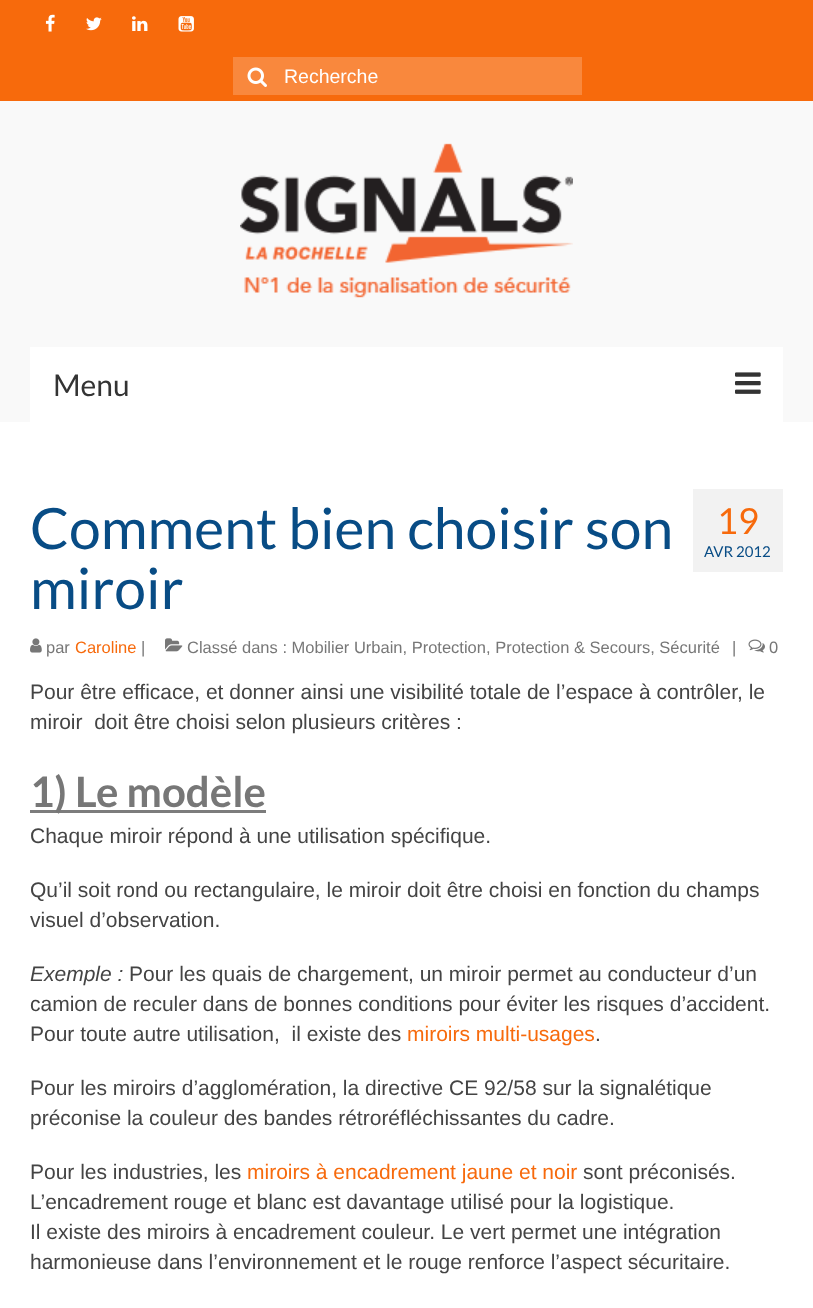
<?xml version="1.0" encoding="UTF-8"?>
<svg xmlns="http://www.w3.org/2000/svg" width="813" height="1308">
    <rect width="100%" height="100%" fill="#FFFFFF"/>
    <rect x="0" y="101" width="813" height="321" fill="#F9F9F9"/>
    <rect x="0" y="0" width="813" height="101" fill="#F76A0C"/>
    <image x="45" y="14" width="10" height="18" href="img_01.png"/>
    <image x="86" y="17" width="16" height="14" href="img_02.png"/>
    <image x="132" y="16" width="16" height="15" href="img_03.png"/>
    <image x="178" y="16" width="16" height="16" href="img_04.png"/>
    <rect x="233" y="57" width="349" height="38" fill="#F9883D"/>
    <image x="247" y="67" width="20" height="20" href="img_05.png"/>
    <text x="284" y="83" font-family="Liberation Sans" font-size="19.5" fill="#FFFFFF">Recherche</text>
    <image x="240" y="143" width="333" height="155" href="img_06.png"/>
    <rect x="30" y="347" width="753" height="75" fill="#FFFFFF"/>
    <text x="53" y="396" font-family="Lato" font-size="30" fill="#333333">Menu</text>
    <image x="735" y="372" width="26" height="22" href="img_07.png"/>
    <text font-family="Lato" font-size="57" fill="#084C85">
        <tspan x="30" y="549">Comment bien choisir son</tspan>
        <tspan x="30" y="609">miroir</tspan>
    </text>
    <image x="30" y="638" width="12" height="15" href="img_08.png"/>
    <text x="46" y="653" font-family="Liberation Sans" font-size="16.5" fill="#777777">par</text>
    <text x="75" y="653" font-family="Liberation Sans" font-size="16.5" fill="#F76A0C">Caroline</text>
    <text x="141" y="653" font-family="Liberation Sans" font-size="16.5" fill="#777777">|</text>
    <image x="165" y="638" width="18" height="14" href="img_09.png"/>
    <text x="187" y="653" font-family="Liberation Sans" font-size="16.5" fill="#777777">Classé dans : Mobilier Urbain, Protection, Protection &amp; Secours, Sécurité</text>
    <text x="732" y="653" font-family="Liberation Sans" font-size="16.5" fill="#777777">|</text>
    <image x="748" y="639" width="17" height="14" href="img_10.png"/>
    <text x="769" y="653" font-family="Liberation Sans" font-size="16.5" fill="#777777">0</text>
    <rect x="693" y="489" width="90" height="83" fill="#F2F2F2"/>
    <text x="717" y="534" font-family="Lato" font-size="36" fill="#F76A0C">19</text>
    <text x="704" y="557" font-family="Lato" font-size="15" fill="#084C85">AVR 2012</text>
    <text font-family="Liberation Sans" font-size="21" fill="#444444" xml:space="preserve"><tspan x="30" y="699">Pour être efficace, et donner ainsi une visibilité totale de l’espace à contrôler, le</tspan><tspan x="30" y="729">miroir  doit être choisi selon plusieurs critères :</tspan></text>
    <rect x="30" y="810" width="236" height="3" fill="#7C7C7C"/>
    <text x="30" y="807" font-family="Lato" font-size="42" font-weight="700" fill="#777777">1) Le modèle</text>
    <text x="30" y="843" font-family="Liberation Sans" font-size="21" fill="#444444">Chaque miroir répond à une utilisation spécifique.</text>
    <text font-family="Liberation Sans" font-size="21" fill="#444444">
        <tspan x="30" y="897">Qu’il soit rond ou rectangulaire, le miroir doit être choisi en fonction du champs</tspan>
        <tspan x="30" y="927">visuel d’observation.</tspan>
    </text>
    <text x="30" y="981" font-family="Liberation Sans" font-size="21" font-style="italic" fill="#444444">Exemple :</text>
    <text x="129" y="981" font-family="Liberation Sans" font-size="21" fill="#444444">Pour les quais de chargement, un miroir permet au conducteur d’un</text>
    <text font-family="Liberation Sans" font-size="21" fill="#444444" xml:space="preserve"><tspan x="30" y="1011">camion de reculer dans de bonnes conditions pour éviter les risques d’accident.</tspan><tspan x="30" y="1041">Pour toute autre utilisation,  il existe des</tspan></text>
    <text x="407" y="1041" font-family="Liberation Sans" font-size="21" fill="#F76A0C">miroirs multi-usages</text>
    <text x="595" y="1041" font-family="Liberation Sans" font-size="21" fill="#444444">.</text>
    <text font-family="Liberation Sans" font-size="21" fill="#444444">
        <tspan x="30" y="1095">Pour les miroirs d’agglomération, la directive CE 92/58 sur la signalétique</tspan>
        <tspan x="30" y="1125">préconise la couleur des bandes rétroréfléchissantes du cadre.</tspan>
    </text>
    <text x="30" y="1179" font-family="Liberation Sans" font-size="21" fill="#444444">Pour les industries, les</text>
    <text x="247" y="1179" font-family="Liberation Sans" font-size="21" fill="#F76A0C">miroirs à encadrement jaune et noir</text>
    <text x="583" y="1179" font-family="Liberation Sans" font-size="21" fill="#444444">sont préconisés.</text>
    <text font-family="Liberation Sans" font-size="21" fill="#444444">
        <tspan x="30" y="1209">L’encadrement rouge et blanc est davantage utilisé pour la logistique.</tspan>
        <tspan x="30" y="1239">Il existe des miroirs à encadrement couleur. Le vert permet une intégration</tspan>
        <tspan x="30" y="1269">harmonieuse dans l’environnement et le rouge renforce l’aspect sécuritaire.</tspan>
    </text>
</svg>
